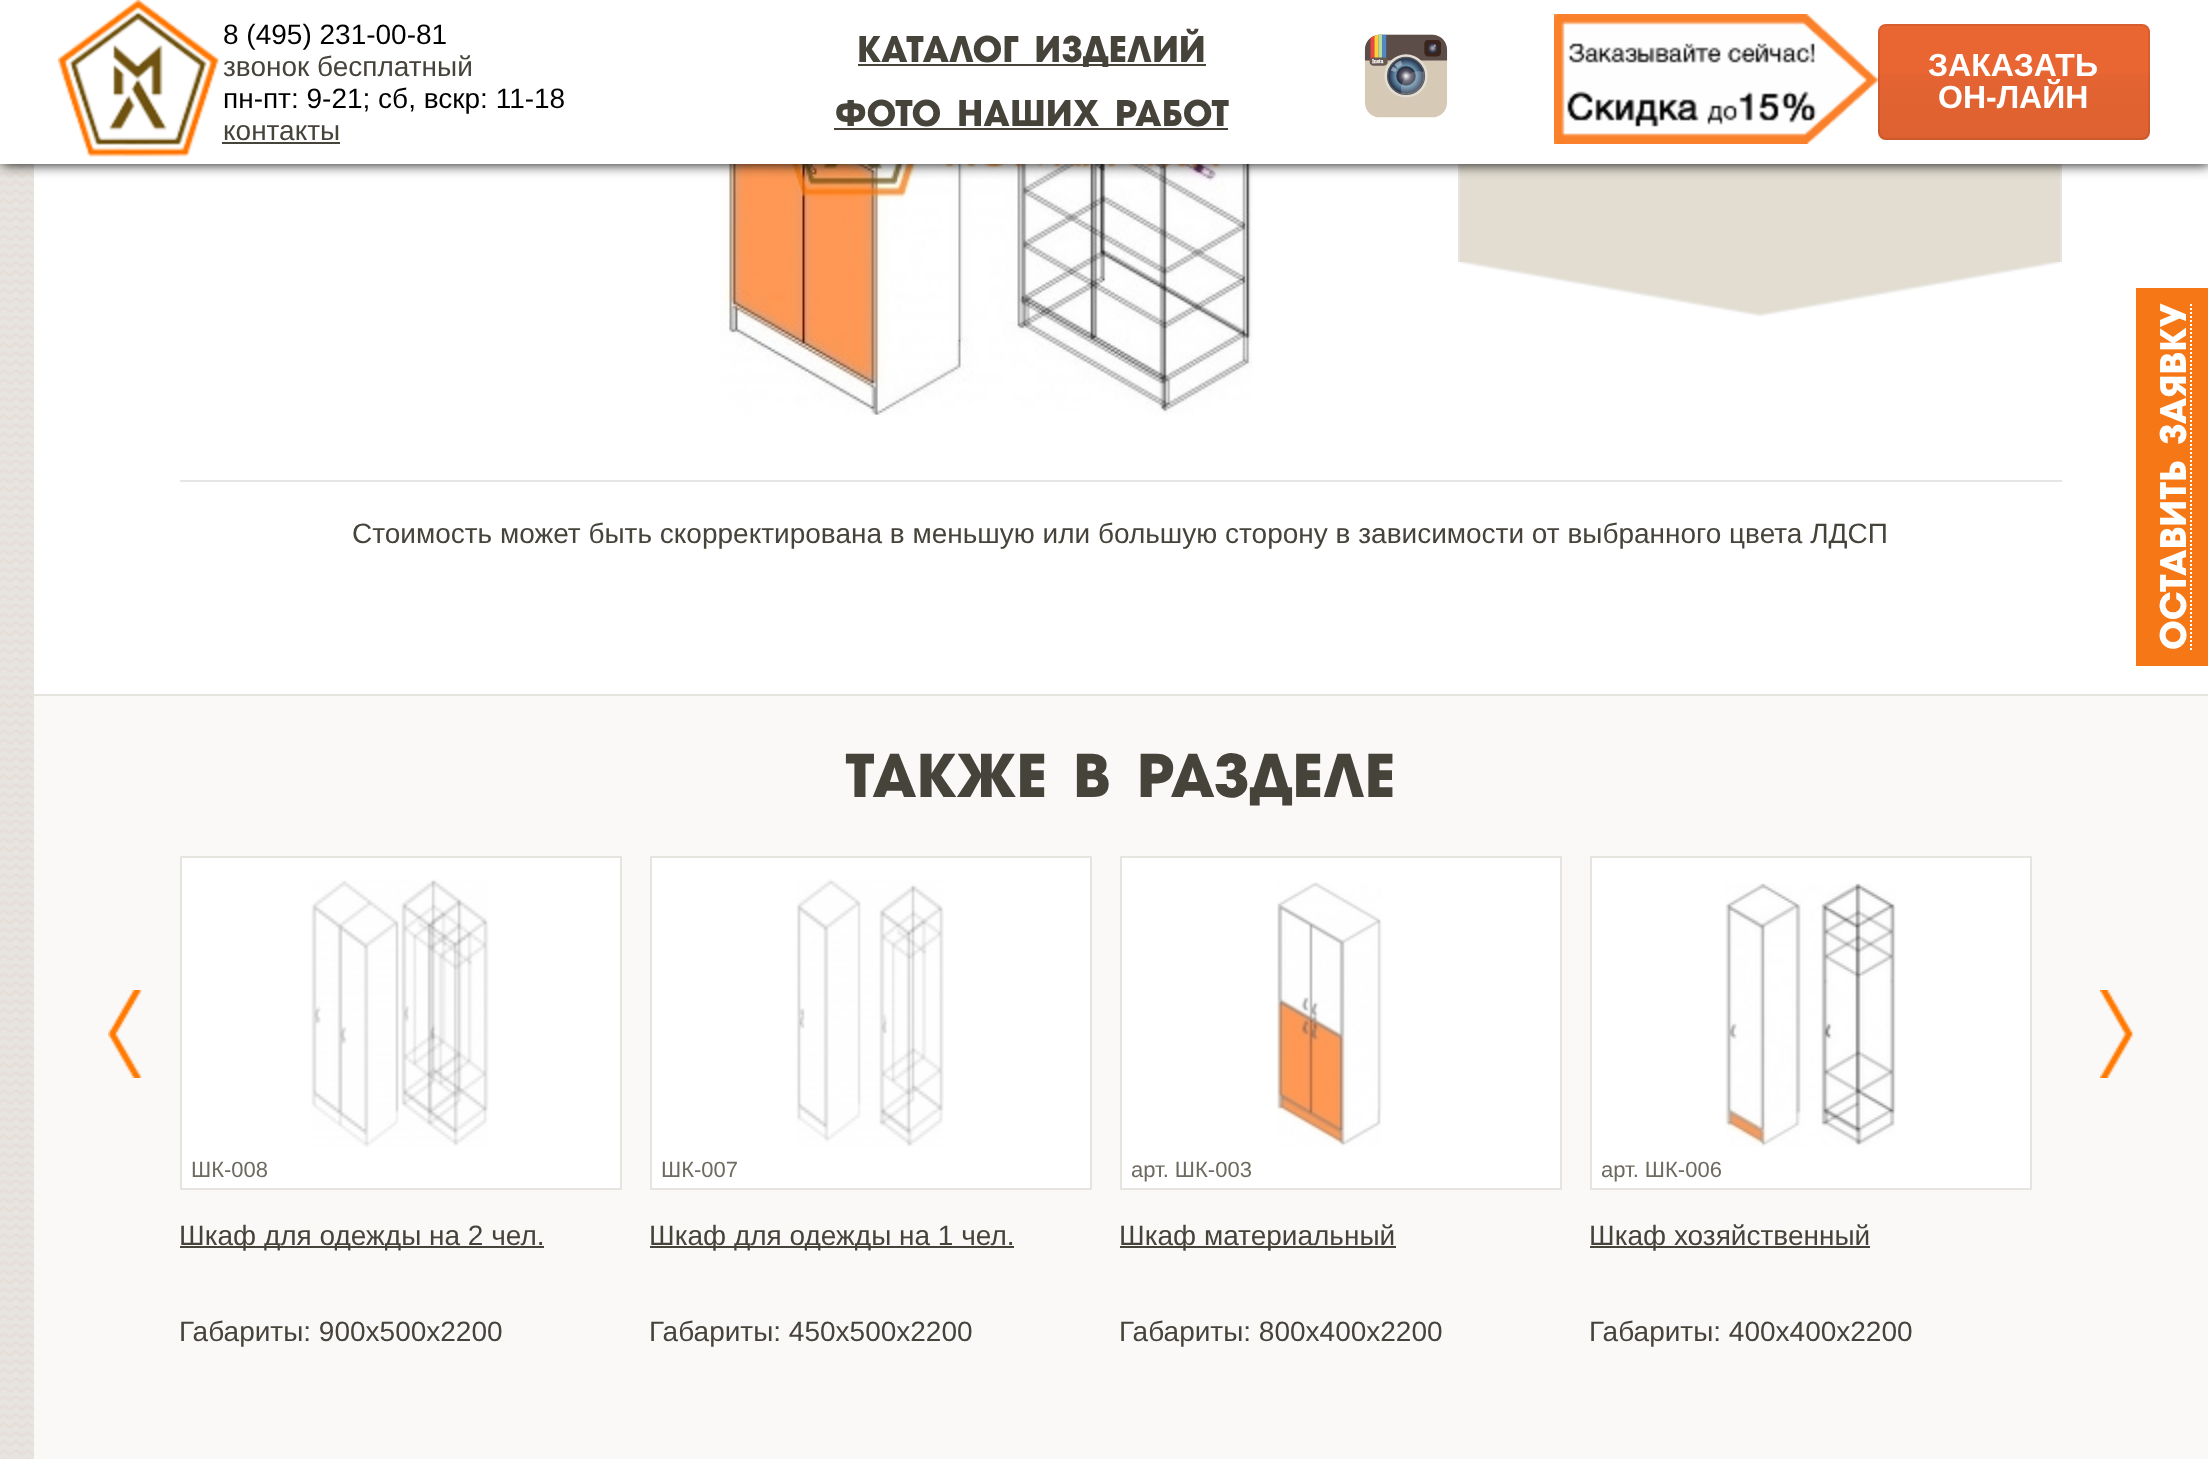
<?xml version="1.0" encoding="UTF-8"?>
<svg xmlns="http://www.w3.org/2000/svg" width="2208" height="1459">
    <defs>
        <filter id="blur1" x="-50%" y="-200%" width="200%" height="500%"><feGaussianBlur stdDeviation="7"/></filter>
        <linearGradient id="g1" gradientUnits="userSpaceOnUse" x1="2014" y1="24" x2="2014" y2="140"><stop offset="0" stop-color="#000000" stop-opacity="0"/><stop offset="1" stop-color="#000000" stop-opacity="0.05"/></linearGradient>
    </defs>
    <rect width="100%" height="100%" fill="#FFFFFF"/>
    <image x="0" y="164" width="34" height="1295" href="img_01.png"/>
    <image x="720" y="164" width="533" height="251" href="img_05.png"/>
    <rect x="1460" y="164" width="600" height="98" fill="#E2DDD0"/>
    <rect x="2060" y="164" width="2" height="98" fill="#E6E4DF"/>
    <rect x="1458" y="164" width="2" height="98" fill="#E6E4DF"/>
    <rect x="2" y="0" width="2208" height="164" fill="#000000" filter="url(#blur1)"/>
    <rect x="0" y="0" width="2208" height="164" fill="#FFFFFF"/>
    <image x="58" y="0" width="161" height="157" href="img_02.png"/>
    <text x="223" y="44" font-family="Liberation Sans" font-size="28" fill="#000000">8 (495) 231-00-81</text>
    <text x="223" y="76" font-family="Liberation Sans" font-size="28" fill="#46433B">звонок бесплатный</text>
    <text x="223" y="108" font-family="Liberation Sans" font-size="28" fill="#000000">пн-пт: 9-21; сб, вскр: 11-18</text>
    <text x="223" y="140" font-family="Liberation Sans" font-size="28" fill="#46433B">контакты</text>
    <rect x="222" y="142" width="118" height="2" fill="#46433B"/>
    <rect x="858" y="64" width="348" height="2" fill="#46433B"/>
    <text x="857" y="62" font-family="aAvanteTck" font-size="36" font-weight="900" fill="#46433B">КАТАЛОГ ИЗДЕЛИЙ</text>
    <text x="835" y="126" font-family="aAvanteTck" font-size="36" font-weight="900" fill="#46433B">ФОТО НАШИХ РАБОТ</text>
    <rect x="834" y="128" width="394" height="2" fill="#46433B"/>
    <image x="1364" y="34" width="84" height="84" href="img_03.png"/>
    <image x="1554" y="14" width="324" height="130" href="img_04.png"/>
    <rect x="1878" y="24" width="272" height="116" rx="8" fill="#E96633"/>
    <rect x="1878" y="74" width="272" height="66" fill="url(#g1)"/>
    <rect x="1879" y="25" width="270" height="114" rx="7" fill="none" stroke="#000000" stroke-opacity="0.08" stroke-width="2"/>
    <text x="1928" y="76" font-family="Liberation Sans" font-size="32" font-weight="700" fill="#FFFFFF">ЗАКАЗАТЬ</text>
    <text x="1938" y="108" font-family="Liberation Sans" font-size="32" font-weight="700" fill="#FFFFFF">ОН-ЛАЙН</text>
    <rect x="2136" y="288" width="72" height="378" fill="#F67715"/>
    <path d="M 2191 650 V 304" fill="none" stroke="#FFFFFF" stroke-width="2" stroke-dasharray="2 2"/>
    <text x="2186" y="650" transform="rotate(-90 2186 650)" font-family="aAvanteTck" font-size="36" font-weight="900" fill="#FFFFFF">ОСТАВИТЬ ЗАЯВКУ</text>
    <image x="1458" y="262" width="604" height="56" href="img_06.png"/>
    <rect x="180" y="480" width="1882" height="2" fill="#E6E6E6"/>
    <text x="352" y="543" font-family="Liberation Sans" font-size="28" fill="#46433B">Стоимость может быть скорректирована в меньшую или большую сторону в зависимости от выбранного цвета ЛДСП</text>
    <rect x="34" y="694" width="2174" height="2" fill="#E6E4DF"/>
    <rect x="34" y="696" width="2174" height="763" fill="#FAF9F8"/>
    <image x="108" y="990" width="34" height="88" href="img_07.png"/>
    <text x="845" y="797" font-family="aAvanteTck" font-size="60" font-weight="900" fill="#46433B">ТАКЖЕ В РАЗДЕЛЕ</text>
    <rect x="181" y="857" width="440" height="332" fill="#FFFFFF" stroke="#E6E4DF" stroke-width="2"/>
    <image x="311" y="879" width="178" height="269" href="img_08.png"/>
    <text x="191" y="1177" font-family="Liberation Sans" font-size="22" fill="#6E6A60">ШК-008</text>
    <rect x="180" y="1246" width="364" height="2" fill="#46433B"/>
    <text x="179" y="1245" font-family="Liberation Sans" font-size="28" fill="#46433B">Шкаф для одежды на 2 чел.</text>
    <text x="179" y="1341" font-family="Liberation Sans" font-size="28" fill="#46433B">Габариты: 900х500х2200</text>
    <rect x="651" y="857" width="440" height="332" fill="#FFFFFF" stroke="#E6E4DF" stroke-width="2"/>
    <image x="796" y="879" width="148" height="268" href="img_09.png"/>
    <text x="661" y="1177" font-family="Liberation Sans" font-size="22" fill="#6E6A60">ШК-007</text>
    <rect x="650" y="1246" width="364" height="2" fill="#46433B"/>
    <text x="649" y="1245" font-family="Liberation Sans" font-size="28" fill="#46433B">Шкаф для одежды на 1 чел.</text>
    <text x="649" y="1341" font-family="Liberation Sans" font-size="28" fill="#46433B">Габариты: 450х500х2200</text>
    <rect x="1121" y="857" width="440" height="332" fill="#FFFFFF" stroke="#E6E4DF" stroke-width="2"/>
    <image x="1277" y="882" width="105" height="265" href="img_10.png"/>
    <text x="1131" y="1177" font-family="Liberation Sans" font-size="22" fill="#6E6A60">арт. ШК-003</text>
    <rect x="1120" y="1246" width="276" height="2" fill="#46433B"/>
    <text x="1119" y="1245" font-family="Liberation Sans" font-size="28" fill="#46433B">Шкаф материальный</text>
    <text x="1119" y="1341" font-family="Liberation Sans" font-size="28" fill="#46433B">Габариты: 800х400х2200</text>
    <rect x="1591" y="857" width="440" height="332" fill="#FFFFFF" stroke="#E6E4DF" stroke-width="2"/>
    <image x="1725" y="883" width="171" height="264" href="img_11.png"/>
    <text x="1601" y="1177" font-family="Liberation Sans" font-size="22" fill="#6E6A60">арт. ШК-006</text>
    <rect x="1590" y="1246" width="280" height="2" fill="#46433B"/>
    <text x="1589" y="1245" font-family="Liberation Sans" font-size="28" fill="#46433B">Шкаф хозяйственный</text>
    <text x="1589" y="1341" font-family="Liberation Sans" font-size="28" fill="#46433B">Габариты: 400х400х2200</text>
    <image x="2100" y="990" width="34" height="88" href="img_12.png"/>
</svg>
